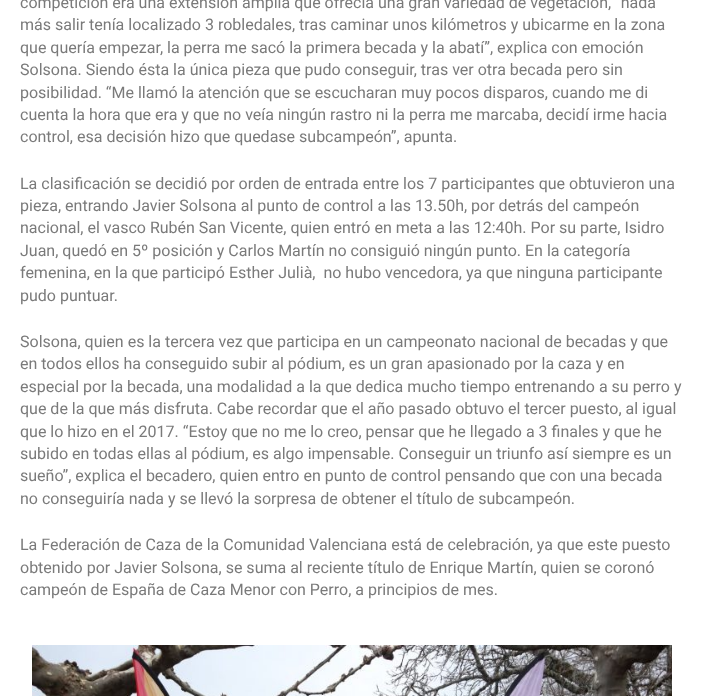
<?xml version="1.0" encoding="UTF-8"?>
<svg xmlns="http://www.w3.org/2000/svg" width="703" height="696">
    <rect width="100%" height="100%" fill="#FFFFFF"/>
    <text font-family="Roboto" font-size="16" fill="#7A7A7A">
        <tspan x="20" y="8">competición era una extensión amplía que ofrecía una gran variedad de vegetación, “nada</tspan>
        <tspan x="20" y="30">más salir tenía localizado 3 robledales, tras caminar unos kilómetros y ubicarme en la zona</tspan>
        <tspan x="20" y="53">que quería empezar, la perra me sacó la primera becada y la abatí”, explica con emoción</tspan>
        <tspan x="20" y="75">Solsona. Siendo ésta la única pieza que pudo conseguir, tras ver otra becada pero sin</tspan>
        <tspan x="20" y="98">posibilidad. “Me llamó la atención que se escucharan muy pocos disparos, cuando me di</tspan>
        <tspan x="20" y="120">cuenta la hora que era y que no veía ningún rastro ni la perra me marcaba, decidí irme hacia</tspan>
        <tspan x="20" y="142">control, esa decisión hizo que quedase subcampeón”, apunta.</tspan>
    </text>
    <text font-family="Roboto" font-size="16" fill="#7A7A7A" xml:space="preserve"><tspan x="20" y="189">La clasificación se decidió por orden de entrada entre los 7 participantes que obtuvieron una</tspan><tspan x="20" y="211">pieza, entrando Javier Solsona al punto de control a las 13.50h, por detrás del campeón</tspan><tspan x="20" y="233">nacional, el vasco Rubén San Vicente, quien entró en meta a las 12:40h. Por su parte, Isidro</tspan><tspan x="20" y="256">Juan, quedó en 5º posición y Carlos Martín no consiguió ningún punto. En la categoría</tspan><tspan x="20" y="278">femenina, en la que participó Esther Julià,  no hubo vencedora, ya que ninguna participante</tspan><tspan x="20" y="301">pudo puntuar.</tspan></text>
    <text font-family="Roboto" font-size="16" fill="#7A7A7A">
        <tspan x="20" y="347">Solsona, quien es la tercera vez que participa en un campeonato nacional de becadas y que</tspan>
        <tspan x="20" y="369">en todos ellos ha conseguido subir al pódium, es un gran apasionado por la caza y en</tspan>
        <tspan x="20" y="392">especial por la becada, una modalidad a la que dedica mucho tiempo entrenando a su perro y</tspan>
        <tspan x="20" y="414">que de la que más disfruta. Cabe recordar que el año pasado obtuvo el tercer puesto, al igual</tspan>
        <tspan x="20" y="437">que lo hizo en el 2017. “Estoy que no me lo creo, pensar que he llegado a 3 finales y que he</tspan>
        <tspan x="20" y="459">subido en todas ellas al pódium, es algo impensable. Conseguir un triunfo así siempre es un</tspan>
        <tspan x="20" y="481">sueño”, explica el becadero, quien entro en punto de control pensando que con una becada</tspan>
        <tspan x="20" y="504">no conseguiría nada y se llevó la sorpresa de obtener el título de subcampeón.</tspan>
    </text>
    <text font-family="Roboto" font-size="16" fill="#7A7A7A">
        <tspan x="20" y="550">La Federación de Caza de la Comunidad Valenciana está de celebración, ya que este puesto</tspan>
        <tspan x="20" y="573">obtenido por Javier Solsona, se suma al reciente título de Enrique Martín, quien se coronó</tspan>
        <tspan x="20" y="595">campeón de España de Caza Menor con Perro, a principios de mes.</tspan>
    </text>
    <image x="32" y="645" width="640" height="51" href="img_01.png"/>
</svg>
